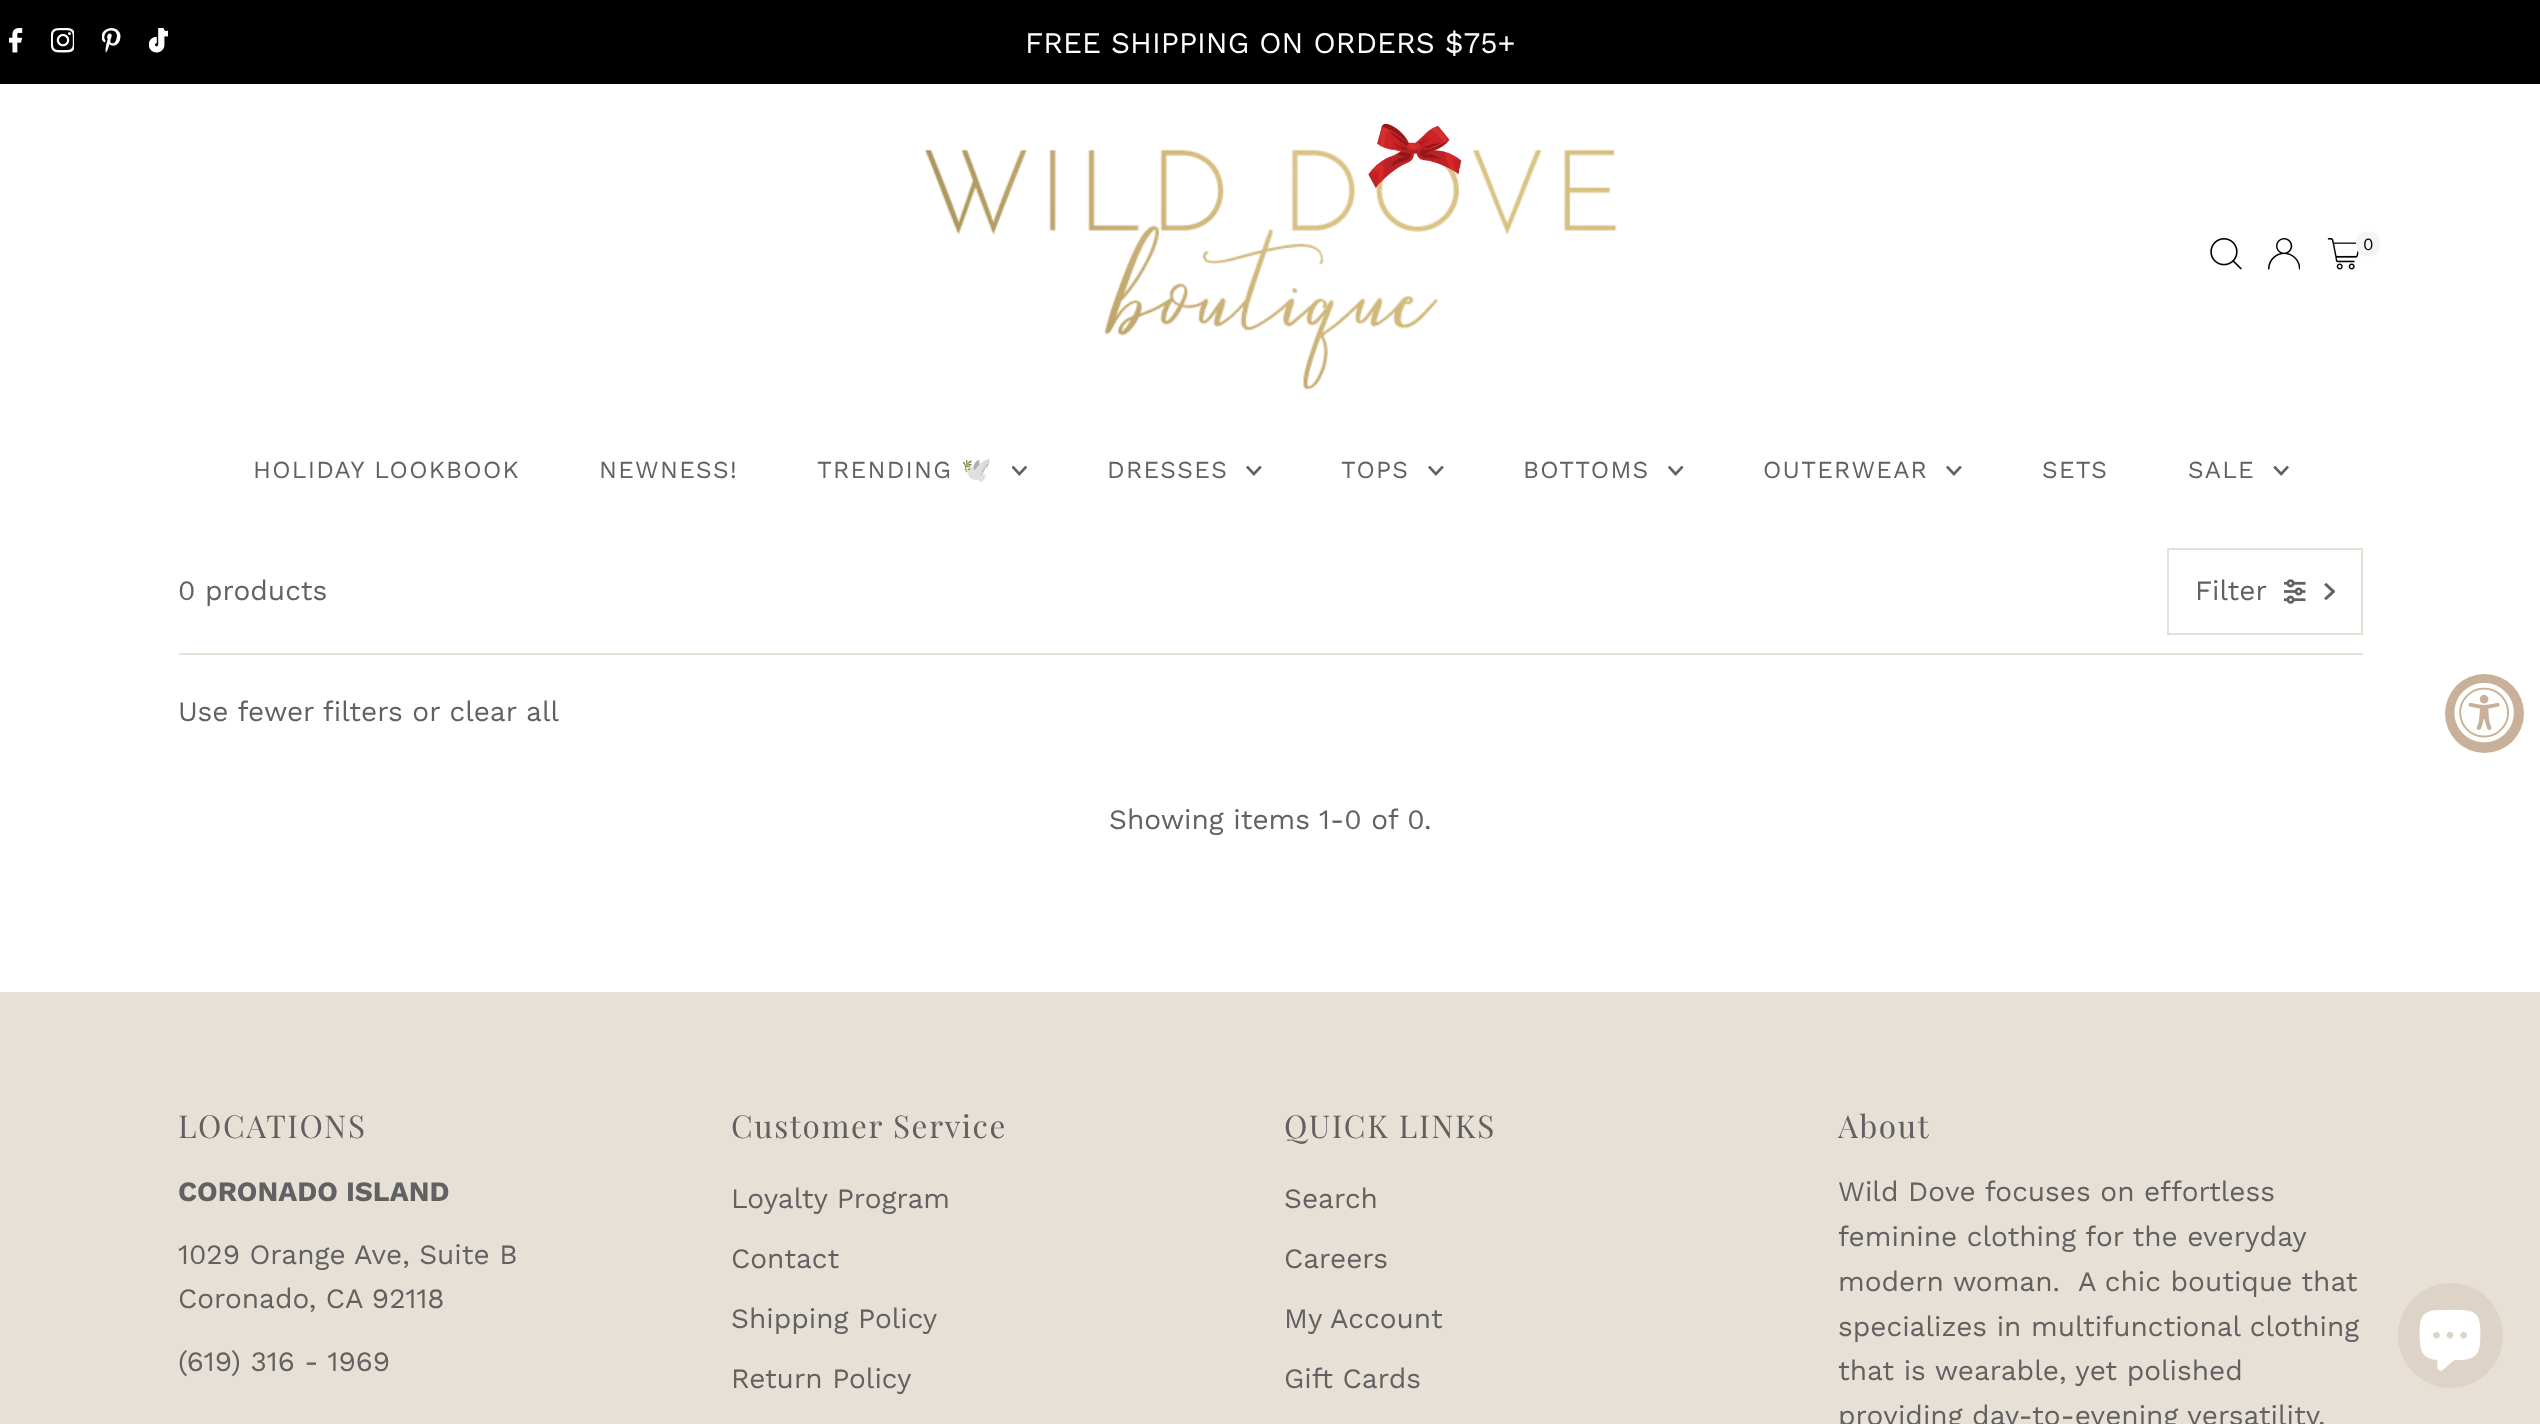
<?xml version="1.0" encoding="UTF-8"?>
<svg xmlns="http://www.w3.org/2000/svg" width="2540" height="1424">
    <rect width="100%" height="100%" fill="#FFFFFF"/>
    <rect x="0" y="0" width="2540" height="84" fill="#000000"/>
    <image x="9" y="28" width="14" height="25" href="img_01.png"/>
    <image x="51" y="28" width="23" height="25" href="img_02.png"/>
    <image x="102" y="28" width="19" height="25" href="img_03.png"/>
    <image x="149" y="28" width="19" height="25" href="img_04.png"/>
    <text x="1025" y="53" font-family="Work Sans" font-size="29.75" fill="#FFFFFF">FREE SHIPPING ON ORDERS $75+</text>
    <image x="924" y="123" width="693" height="268" href="img_05.png"/>
    <image x="2210" y="238" width="32" height="32" href="img_06.png"/>
    <image x="2268" y="238" width="32" height="32" href="img_07.png"/>
    <image x="2327" y="238" width="32" height="32" href="img_08.png"/>
    <rect x="2356" y="231" width="24" height="26" rx="12" fill="#F5F5F5"/>
    <text x="2363" y="250" font-family="Work Sans" font-size="17" fill="#000000">0</text>
    <text x="253" y="478" font-family="Work Sans" font-size="24.5" letter-spacing="1.25" fill="#616161">HOLIDAY LOOKBOOK</text>
    <text x="599" y="478" font-family="Work Sans" font-size="24.5" letter-spacing="1.25" fill="#616161">NEWNESS!</text>
    <text x="817" y="478" font-family="Work Sans" font-size="24.5" letter-spacing="1.25" fill="#616161">TRENDING</text>
    <text x="961" y="478" font-family="Noto Color Emoji" font-size="24.5" letter-spacing="1.25" fill="#616161">🕊️</text>
    <image x="1012" y="466" width="15" height="10" href="img_09.png"/>
    <text x="1107" y="478" font-family="Work Sans" font-size="24.5" letter-spacing="1.25" fill="#616161">DRESSES</text>
    <image x="1246" y="466" width="16" height="10" href="img_10.png"/>
    <text x="1341" y="478" font-family="Work Sans" font-size="24.5" letter-spacing="1.25" fill="#616161">TOPS</text>
    <image x="1428" y="466" width="16" height="10" href="img_10.png"/>
    <text x="1523" y="478" font-family="Work Sans" font-size="24.5" letter-spacing="1.25" fill="#616161">BOTTOMS</text>
    <image x="1668" y="466" width="16" height="10" href="img_11.png"/>
    <text x="1763" y="478" font-family="Work Sans" font-size="24.5" letter-spacing="1.25" fill="#616161">OUTERWEAR</text>
    <image x="1946" y="466" width="16" height="10" href="img_10.png"/>
    <text x="2042" y="478" font-family="Work Sans" font-size="24.5" letter-spacing="1.25" fill="#616161">SETS</text>
    <text x="2188" y="478" font-family="Work Sans" font-size="24.5" letter-spacing="1.25" fill="#616161">SALE</text>
    <image x="2273" y="466" width="16" height="10" href="img_12.png"/>
    <rect x="179" y="653" width="2184" height="2" fill="#E6E0D7"/>
    <text x="178" y="600" font-family="Work Sans" font-size="28" fill="#616161">0 products</text>
    <rect x="2168" y="549" width="194" height="85" fill="none" stroke="#E6E0D7" stroke-width="2"/>
    <text x="2195" y="600" font-family="Work Sans" font-size="28" fill="#616161">Filter</text>
    <image x="2284" y="579" width="22" height="25" href="img_13.png"/>
    <image x="2324" y="583" width="11" height="17" href="img_14.png"/>
    <text x="178" y="721" font-family="Work Sans" font-size="28" fill="#616161">Use fewer filters or clear all</text>
    <text x="1109" y="829" font-family="Work Sans" font-size="28" fill="#616161">Showing items 1-0 of 0.</text>
    <rect x="0" y="992" width="2540" height="432" fill="#E6E0D7"/>
    <text x="178" y="1138" font-family="Playfair Display" font-size="31.5" letter-spacing="1.6" fill="#616161">LOCATIONS</text>
    <text x="178" y="1201" font-family="Work Sans" font-size="28" font-weight="700" fill="#616161">CORONADO ISLAND</text>
    <text font-family="Work Sans" font-size="28" fill="#616161">
        <tspan x="178" y="1264">1029 Orange Ave, Suite B</tspan>
        <tspan x="178" y="1308">Coronado, CA 92118</tspan>
    </text>
    <text x="178" y="1371" font-family="Work Sans" font-size="28" fill="#616161">(619) 316 - 1969</text>
    <text x="731" y="1138" font-family="Playfair Display" font-size="31.5" letter-spacing="1.6" fill="#616161">Customer Service</text>
    <text x="731" y="1208" font-family="Work Sans" font-size="28" fill="#616161">Loyalty Program</text>
    <text x="731" y="1268" font-family="Work Sans" font-size="28" fill="#616161">Contact</text>
    <text x="731" y="1328" font-family="Work Sans" font-size="28" fill="#616161">Shipping Policy</text>
    <text x="731" y="1388" font-family="Work Sans" font-size="28" fill="#616161">Return Policy</text>
    <text x="1284" y="1138" font-family="Playfair Display" font-size="31.5" letter-spacing="1.6" fill="#616161">QUICK LINKS</text>
    <text x="1284" y="1208" font-family="Work Sans" font-size="28" fill="#616161">Search</text>
    <text x="1284" y="1268" font-family="Work Sans" font-size="28" fill="#616161">Careers</text>
    <text x="1284" y="1328" font-family="Work Sans" font-size="28" fill="#616161">My Account</text>
    <text x="1284" y="1388" font-family="Work Sans" font-size="28" fill="#616161">Gift Cards</text>
    <text x="1838" y="1138" font-family="Playfair Display" font-size="31.5" letter-spacing="1.6" fill="#616161">About</text>
    <text font-family="Work Sans" font-size="28" fill="#616161" xml:space="preserve"><tspan x="1838" y="1201">Wild Dove focuses on effortless</tspan><tspan x="1838" y="1246">feminine clothing for the everyday</tspan><tspan x="1838" y="1291">modern woman.  A chic boutique that</tspan><tspan x="1838" y="1336">specializes in multifunctional clothing</tspan><tspan x="1838" y="1380">that is wearable, yet polished</tspan><tspan x="1838" y="1425">providing day-to-evening versatility.</tspan></text>
    <circle cx="2484.5" cy="713.5" r="39.5" fill="#C9B199"/>
    <image x="2454" y="682" width="60" height="61" href="img_15.png"/>
    <circle cx="2450.5" cy="1335.5" r="52.5" fill="#DDD3C6"/>
    <image x="2419" y="1309" width="62" height="62" href="img_16.png"/>
</svg>
